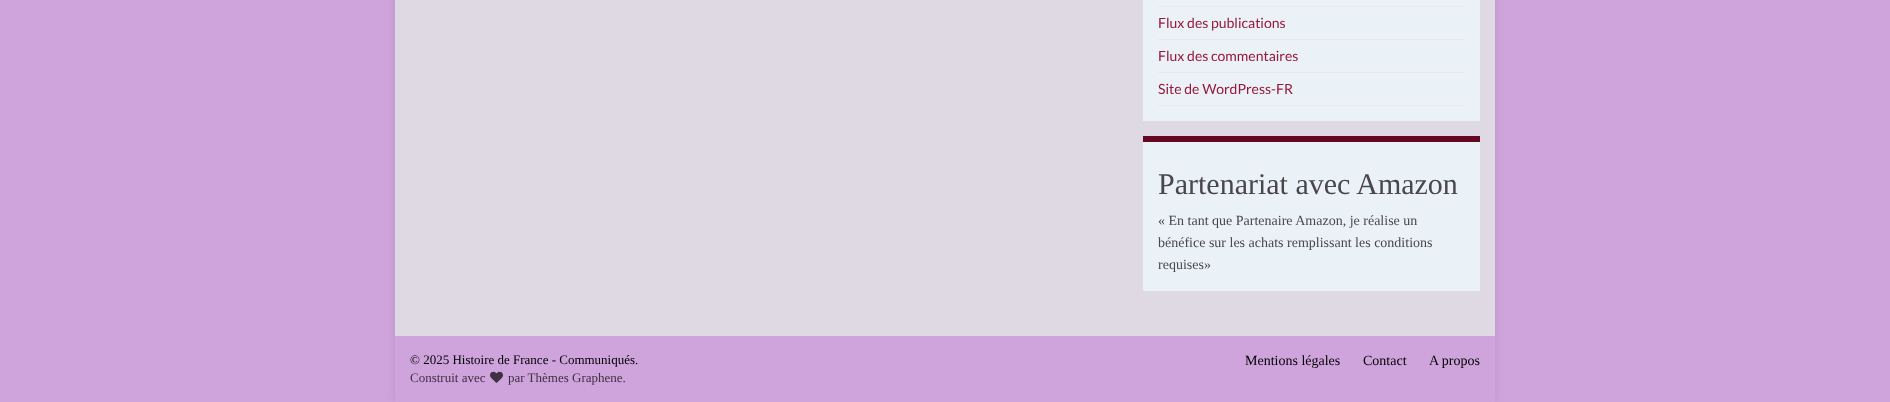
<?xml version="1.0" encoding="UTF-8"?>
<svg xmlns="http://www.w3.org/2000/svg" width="1890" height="402">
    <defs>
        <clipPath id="clip1"><path d="M 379 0 H 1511 V 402 H 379 Z M 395 -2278 H 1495 V 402 H 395 Z" clip-rule="evenodd"/></clipPath>
        <filter id="blur1" x="-50%" y="-200%" width="200%" height="500%"><feGaussianBlur stdDeviation="5"/></filter>
    </defs>
    <rect width="100%" height="100%" fill="#CFA4DD"/>
    <g clip-path="url(#clip1)">
        <rect x="395" y="-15" width="1100" height="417" fill="#000000" fill-opacity="0.1" filter="url(#blur1)"/>
    </g>
    <rect x="395" y="0" width="1100" height="336" fill="#DED9E2"/>
    <rect x="1143" y="0" width="337" height="121" fill="#EAF2F7"/>
    <rect x="1158" y="6" width="307" height="1" fill="#E9E9E9"/>
    <rect x="1158" y="39" width="307" height="1" fill="#E9E9E9"/>
    <text x="1158" y="28" font-family="Lato" font-size="14" fill="#99173C">Flux des publications</text>
    <rect x="1158" y="72" width="307" height="1" fill="#E9E9E9"/>
    <text x="1158" y="61" font-family="Lato" font-size="14" fill="#99173C">Flux des commentaires</text>
    <rect x="1158" y="105" width="307" height="1" fill="#E9E9E9"/>
    <text x="1158" y="94" font-family="Lato" font-size="14" fill="#99173C">Site de WordPress-FR</text>
    <rect x="1143" y="142" width="337" height="149" fill="#EAF2F7"/>
    <rect x="1143" y="136" width="337" height="6" fill="#640822"/>
    <text x="1158" y="194" font-family="Liberation Serif" font-size="30" fill="#4A474B">Partenariat avec Amazon</text>
    <text font-family="Liberation Serif" font-size="14" fill="#4A474B">
        <tspan x="1158" y="225">« En tant que Partenaire Amazon, je réalise un</tspan>
        <tspan x="1158" y="247">bénéfice sur les achats remplissant les conditions</tspan>
        <tspan x="1158" y="269">requises»</tspan>
    </text>
    <text x="410" y="364" font-family="Liberation Serif" font-size="13" fill="#000000">© 2025 Histoire de France - Communiqués.</text>
    <text x="410" y="382" font-family="Liberation Serif" font-size="13" fill="#3E3142">Construit avec</text>
    <image x="490" y="371" width="13" height="12" href="img_01.png"/>
    <text x="508" y="382" font-family="Liberation Serif" font-size="13" fill="#3E3142">par Thèmes Graphene.</text>
    <text x="1245" y="365" font-family="Liberation Serif" font-size="14" fill="#000000">Mentions légales</text>
    <text x="1363" y="365" font-family="Liberation Serif" font-size="14" fill="#000000">Contact</text>
    <text x="1429" y="365" font-family="Liberation Serif" font-size="14" fill="#000000">A propos</text>
</svg>
